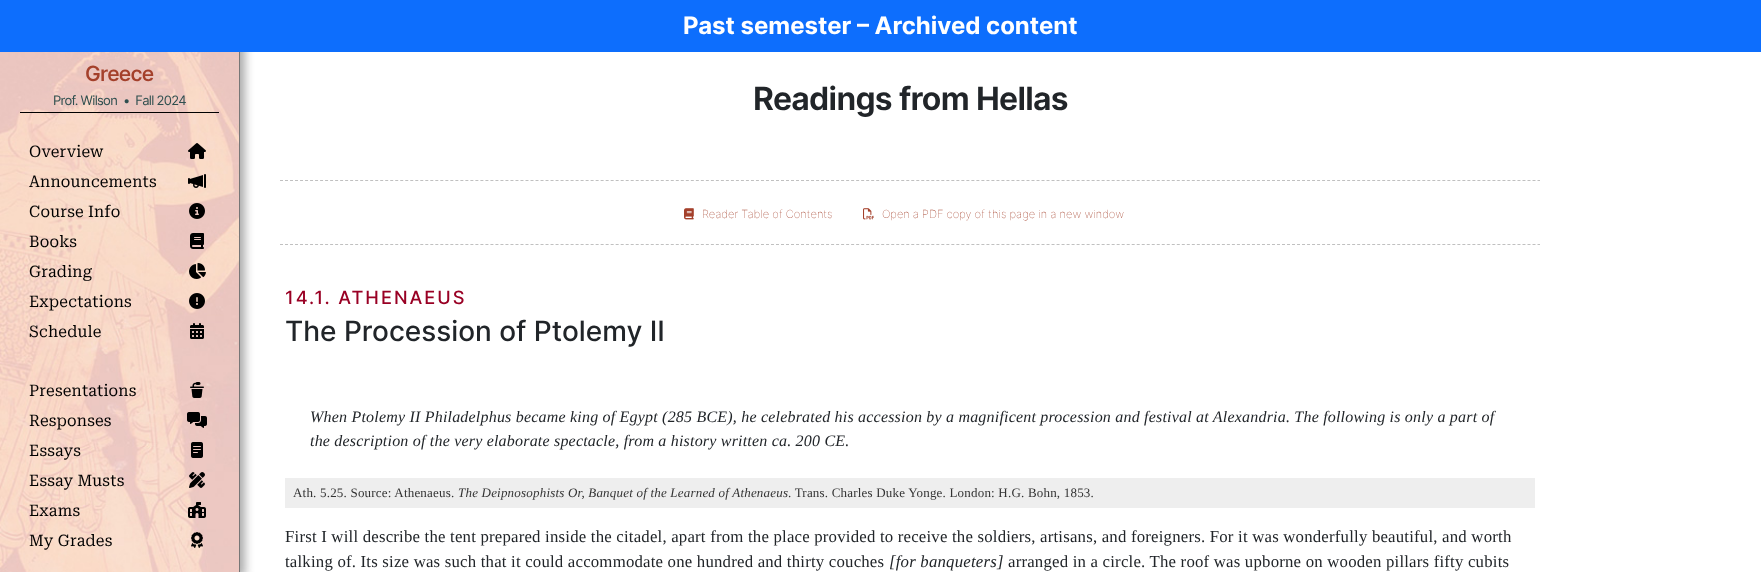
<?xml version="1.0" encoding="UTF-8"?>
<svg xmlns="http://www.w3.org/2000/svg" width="1761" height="572">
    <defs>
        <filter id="blur1" x="-50%" y="-200%" width="200%" height="500%"><feGaussianBlur stdDeviation="5"/></filter>
    </defs>
    <rect width="100%" height="100%" fill="#FFFFFF"/>
    <rect x="-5" y="-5" width="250" height="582" fill="#AAAAAA" filter="url(#blur1)"/>
    <rect x="0" y="0" width="1761" height="52" fill="#0D6EFD"/>
    <text x="683" y="34" font-family="Inter" font-size="24" font-weight="700" font-style="italic" fill="#FFFFFF">Past semester – Archived content</text>
    <image x="0" y="52" width="239" height="520" href="img_01.png"/>
    <rect x="239" y="52" width="1" height="520" fill="#777777"/>
    <rect x="20" y="112" width="199" height="1" fill="#000000"/>
    <text x="85" y="81" font-family="Inter" font-size="21" font-weight="500" font-style="italic" letter-spacing="-0.7" fill="#A4402B">Greece</text>
    <text x="53" y="105" font-family="Inter" font-size="13" font-style="italic" letter-spacing="-0.7" fill="#2F4F4F">Prof. Wilson • Fall 2024</text>
    <text x="29" y="157" font-family="Roboto Serif" font-size="16" letter-spacing="0.2" fill="#000000">Overview</text>
    <image x="188" y="143" width="18" height="16" href="img_02.png"/>
    <text x="29" y="187" font-family="Roboto Serif" font-size="16" letter-spacing="0.2" fill="#000000">Announcements</text>
    <image x="188" y="174" width="18" height="14" href="img_03.png"/>
    <text x="29" y="217" font-family="Roboto Serif" font-size="16" letter-spacing="0.2" fill="#000000">Course Info</text>
    <image x="189" y="203" width="16" height="16" href="img_04.png"/>
    <text x="29" y="247" font-family="Roboto Serif" font-size="16" letter-spacing="0.2" fill="#000000">Books</text>
    <image x="190" y="233" width="14" height="16" href="img_05.png"/>
    <text x="29" y="277" font-family="Roboto Serif" font-size="16" letter-spacing="0.2" fill="#000000">Grading</text>
    <image x="189" y="263" width="17" height="16" href="img_06.png"/>
    <text x="29" y="307" font-family="Roboto Serif" font-size="16" letter-spacing="0.2" fill="#000000">Expectations</text>
    <image x="189" y="293" width="16" height="16" href="img_07.png"/>
    <text x="29" y="337" font-family="Roboto Serif" font-size="16" letter-spacing="0.2" fill="#000000">Schedule</text>
    <image x="190" y="323" width="14" height="16" href="img_08.png"/>
    <text x="29" y="396" font-family="Roboto Serif" font-size="16" letter-spacing="0.2" fill="#000000">Presentations</text>
    <image x="190" y="382" width="14" height="16" href="img_09.png"/>
    <text x="29" y="426" font-family="Roboto Serif" font-size="16" letter-spacing="0.2" fill="#000000">Responses</text>
    <image x="187" y="412" width="20" height="16" href="img_10.png"/>
    <text x="29" y="456" font-family="Roboto Serif" font-size="16" letter-spacing="0.2" fill="#000000">Essays</text>
    <image x="191" y="442" width="12" height="16" href="img_11.png"/>
    <text x="29" y="486" font-family="Roboto Serif" font-size="16" letter-spacing="0.2" fill="#000000">Essay Musts</text>
    <image x="189" y="472" width="16" height="16" href="img_12.png"/>
    <text x="29" y="516" font-family="Roboto Serif" font-size="16" letter-spacing="0.2" fill="#000000">Exams</text>
    <image x="188" y="502" width="18" height="16" href="img_13.png"/>
    <text x="29" y="546" font-family="Roboto Serif" font-size="16" letter-spacing="0.2" fill="#000000">My Grades</text>
    <image x="191" y="532" width="12" height="16" href="img_14.png"/>
    <text x="753" y="110" font-family="Inter" font-size="32" font-weight="600" font-style="italic" letter-spacing="-0.7" fill="#212529">Readings from Hellas</text>
    <path d="M 280 180.5 H 1540" fill="none" stroke="#C0C0C0" stroke-dasharray="3 2.01"/>
    <image x="684" y="208" width="10" height="12" href="img_15.png"/>
    <text x="702" y="218" font-family="Inter" font-size="11.2" font-weight="100" font-style="italic" fill="#A4402B">Reader Table of Contents</text>
    <image x="863" y="208" width="11" height="12" href="img_16.png"/>
    <text x="882" y="218" font-family="Inter" font-size="11.2" font-weight="100" font-style="italic" fill="#A4402B">Open a PDF copy of this page in a new window</text>
    <path d="M 280 244.5 H 1540" fill="none" stroke="#C0C0C0" stroke-dasharray="3 2.01"/>
    <text x="285" y="304" font-family="'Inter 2'" font-size="18.25" font-weight="500" font-style="italic" letter-spacing="2" fill="#990024">14.1. ATHENAEUS</text>
    <text x="285" y="341" font-family="'Inter 2'" font-size="28" font-weight="500" font-style="italic" fill="#212529">The Procession of Ptolemy II</text>
    <text font-family="Liberation Serif" font-size="16" font-style="italic" letter-spacing="0.2" fill="#212529">
        <tspan x="310" y="422">When Ptolemy II Philadelphus became king of Egypt (285 BCE), he celebrated his accession by a magnificent procession and festival at Alexandria. The following is only a part of</tspan>
        <tspan x="310" y="446">the description of the very elaborate spectacle, from a history written ca. 200 CE.</tspan>
    </text>
    <rect x="285" y="478" width="1250" height="30" fill="#EEEEEE"/>
    <text x="293" y="497" font-family="Liberation Serif" font-size="13" letter-spacing="0.2" fill="#333333">Ath. 5.25. Source: Athenaeus.</text>
    <text x="458" y="497" font-family="Liberation Serif" font-size="13" font-style="italic" letter-spacing="0.2" fill="#333333">The Deipnosophists Or, Banquet of the Learned of Athenaeus</text>
    <text x="788" y="497" font-family="Liberation Serif" font-size="13" letter-spacing="0.2" fill="#333333">. Trans. Charles Duke Yonge. London: H.G. Bohn, 1853.</text>
    <text font-family="Liberation Serif" font-size="16.8" letter-spacing="0.2" fill="#212529">
        <tspan x="285" y="542">First I will describe the tent prepared inside the citadel, apart from the place provided to receive the soldiers, artisans, and foreigners. For it was wonderfully beautiful, and worth</tspan>
        <tspan x="285" y="567">talking of. Its size was such that it could accommodate one hundred and thirty couches</tspan>
    </text>
    <text x="889" y="567" font-family="Liberation Serif" font-size="16.8" font-style="italic" letter-spacing="0.2" fill="#212529">[for banqueters]</text>
    <text x="1008" y="567" font-family="Liberation Serif" font-size="16.8" letter-spacing="0.2" fill="#212529">arranged in a circle. The roof was upborne on wooden pillars fifty cubits</text>
</svg>
